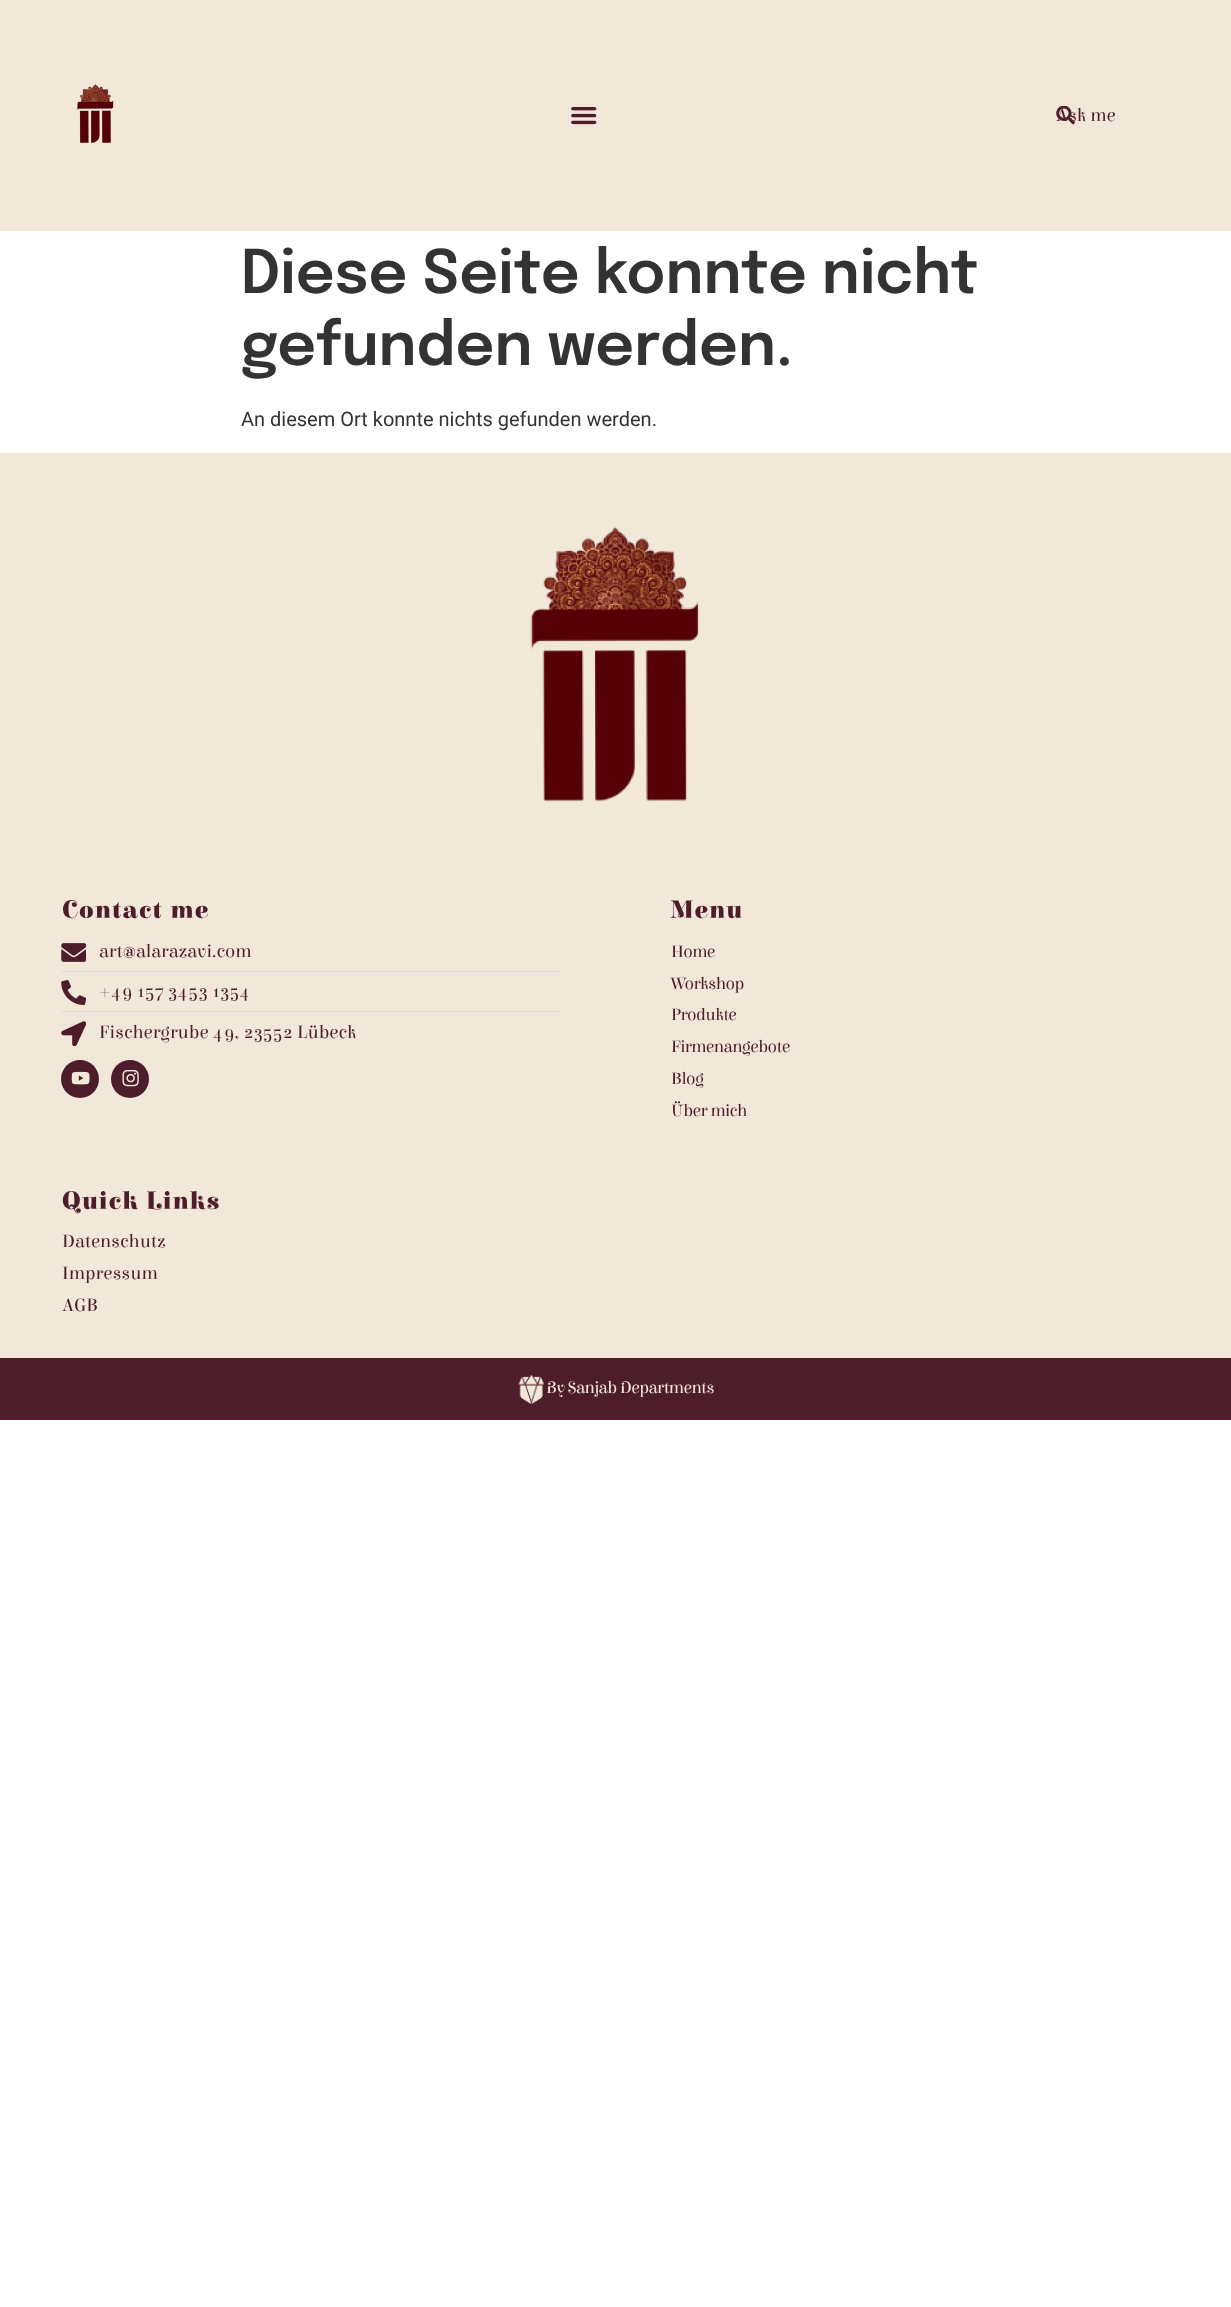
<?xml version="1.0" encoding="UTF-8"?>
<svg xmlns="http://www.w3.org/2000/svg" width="1231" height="2307">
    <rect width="100%" height="100%" fill="#FFFFFF"/>
    <rect x="0" y="0" width="1231" height="231" fill="#F1E8D9"/>
    <image x="77" y="84" width="37" height="59" href="img_01.png"/>
    <image x="571" y="107" width="26" height="18" href="img_02.png"/>
    <text x="1056" y="121" font-family="Elsie" font-size="18.75" fill="#4D1D2B">Ask me</text>
    <image x="1056" y="106" width="19" height="19" href="img_03.png"/>
    <text font-family="Epilogue" font-size="60" font-weight="600" fill="#333333">
        <tspan x="241" y="293">Diese Seite konnte nicht</tspan>
        <tspan x="241" y="365">gefunden werden.</tspan>
    </text>
    <text x="241" y="426" font-family="Roboto" font-size="20" fill="#333333">An diesem Ort konnte nichts gefunden werden.</text>
    <rect x="0" y="453" width="1231" height="905" fill="#F1E8D9"/>
    <image x="530" y="526" width="169" height="276" href="img_04.png"/>
    <text x="62" y="918" font-family="Elsie Swash Caps" font-size="25" font-weight="900" letter-spacing="1.25" fill="#4D1D2B">Contact me</text>
    <image x="61" y="943" width="25" height="19" href="img_05.png"/>
    <text x="99" y="957" font-family="Elsie" font-size="18.75" fill="#4D1D2B">art@alarazavi.com</text>
    <rect x="61" y="971" width="499" height="1" fill="#DDDDDD"/>
    <image x="61" y="980" width="25" height="25" href="img_06.png"/>
    <text x="99" y="997" font-family="Elsie" font-size="18.75" fill="#4D1D2B">+49 157 3453 1354</text>
    <rect x="61" y="1011" width="499" height="1" fill="#DDDDDD"/>
    <image x="61" y="1021" width="25" height="25" href="img_07.png"/>
    <text x="99" y="1038" font-family="Elsie" font-size="18.75" fill="#4D1D2B">Fischergrube 49, 23552 Lübeck</text>
    <circle cx="80" cy="1079" r="19" fill="#4D1D2B"/>
    <image x="71" y="1071" width="19" height="14" href="img_08.png"/>
    <circle cx="130" cy="1079" r="19" fill="#4D1D2B"/>
    <image x="122" y="1070" width="17" height="17" href="img_09.png"/>
    <text x="671" y="918" font-family="Elsie Swash Caps" font-size="25" font-weight="900" letter-spacing="1.25" fill="#4D1D2B">Menu</text>
    <text font-family="Elsie" font-size="17.5" letter-spacing="-0.6" fill="#4D1D2B">
        <tspan x="671" y="957">Home</tspan>
        <tspan x="671" y="989">Workshop</tspan>
        <tspan x="671" y="1020">Produkte</tspan>
        <tspan x="671" y="1052">Firmenangebote</tspan>
        <tspan x="671" y="1084">Blog</tspan>
        <tspan x="671" y="1116">Über mich</tspan>
    </text>
    <text x="62" y="1209" font-family="Elsie Swash Caps" font-size="25" font-weight="900" letter-spacing="1.25" fill="#4D1D2B">Quick Links</text>
    <text font-family="Elsie" font-size="18.75" fill="#4D1D2B">
        <tspan x="62" y="1247">Datenschutz</tspan>
        <tspan x="62" y="1279">Impressum</tspan>
        <tspan x="62" y="1311">AGB</tspan>
    </text>
    <rect x="0" y="1358" width="1231" height="62" fill="#4D1D2B"/>
    <image x="518" y="1375" width="26" height="29" href="img_10.png"/>
    <text x="546" y="1393" font-family="Elsie Swash Caps" font-size="17.5" letter-spacing="-0.6" fill="#F1E8D9">By Sanjab Departments</text>
</svg>
